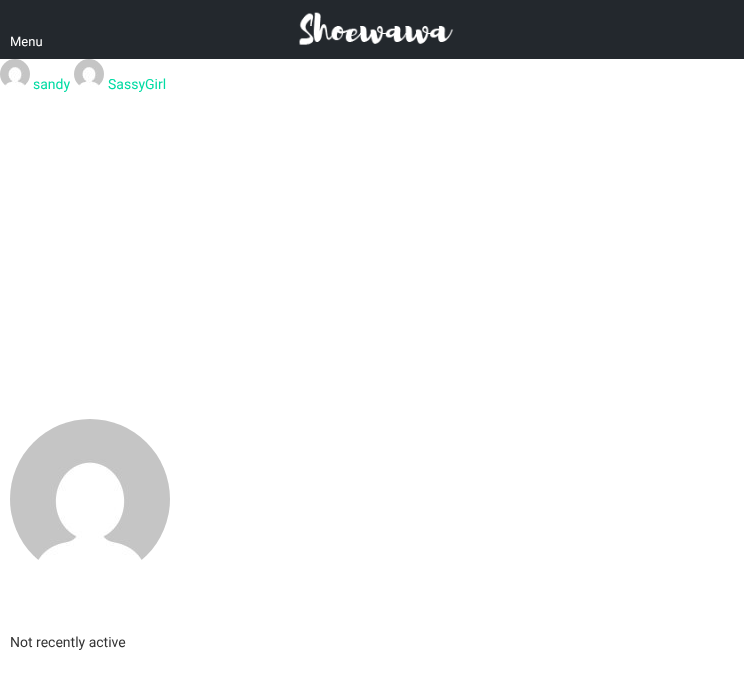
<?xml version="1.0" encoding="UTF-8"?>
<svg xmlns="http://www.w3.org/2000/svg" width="744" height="697">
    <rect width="100%" height="100%" fill="#FFFFFF"/>
    <rect x="0" y="0" width="744" height="59" fill="#23282D"/>
    <text x="10" y="46" font-family="Roboto" font-size="13" fill="#FFFFFF">Menu</text>
    <image x="299" y="12" width="155" height="33" href="img_01.png"/>
    <image x="0" y="59" width="30" height="28" href="img_02.png"/>
    <text x="33" y="89" font-family="Roboto" font-size="14" fill="#00DBA3">sandy</text>
    <image x="74" y="59" width="30" height="28" href="img_02.png"/>
    <text x="108" y="89" font-family="Roboto" font-size="14" fill="#00DBA3">SassyGirl</text>
    <image x="10" y="419" width="160" height="141" href="img_03.png"/>
    <text x="10" y="647" font-family="Roboto" font-size="14" fill="#333333">Not recently active</text>
</svg>
